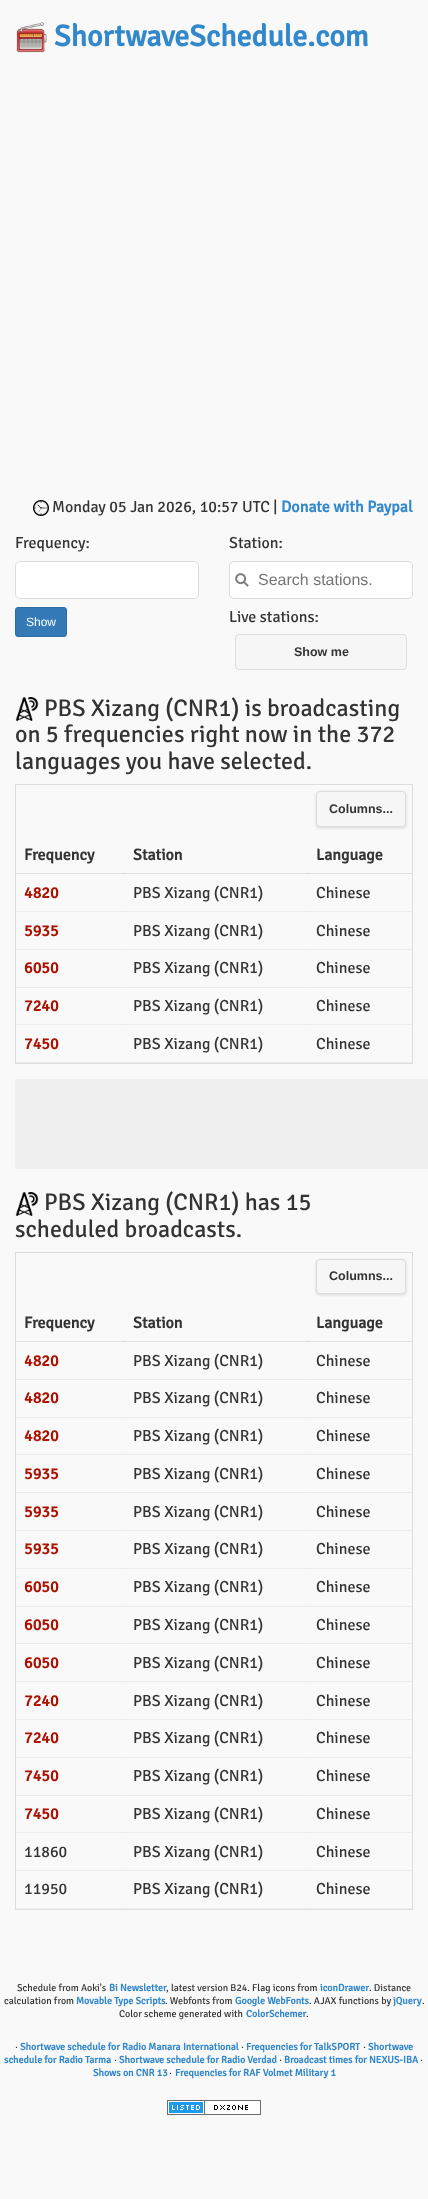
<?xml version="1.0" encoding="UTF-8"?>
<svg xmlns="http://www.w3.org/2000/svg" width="428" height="2199">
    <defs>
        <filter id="blur1" x="-50%" y="-200%" width="200%" height="500%"><feGaussianBlur stdDeviation="1.5"/></filter>
    </defs>
    <rect width="100%" height="100%" fill="#F9F9F9"/>
    <rect x="16" y="1341" width="293" height="1" fill="#E0E0E0"/>
    <rect x="124" y="1341" width="1" height="1" fill="#CACACA"/>
    <rect x="16" y="1379" width="293" height="1" fill="#EDEDED"/>
    <rect x="124" y="1379" width="1" height="1" fill="#E1E1E1"/>
    <rect x="16" y="1417" width="293" height="1" fill="#EDEDED"/>
    <rect x="124" y="1417" width="1" height="1" fill="#E1E1E1"/>
    <rect x="16" y="1454" width="293" height="1" fill="#EDEDED"/>
    <rect x="124" y="1454" width="1" height="1" fill="#E1E1E1"/>
    <rect x="16" y="1492" width="293" height="1" fill="#EDEDED"/>
    <rect x="124" y="1492" width="1" height="1" fill="#E1E1E1"/>
    <rect x="16" y="1530" width="293" height="1" fill="#EDEDED"/>
    <rect x="124" y="1530" width="1" height="1" fill="#E1E1E1"/>
    <rect x="16" y="1568" width="293" height="1" fill="#EDEDED"/>
    <rect x="124" y="1568" width="1" height="1" fill="#E1E1E1"/>
    <rect x="16" y="1606" width="293" height="1" fill="#EDEDED"/>
    <rect x="124" y="1606" width="1" height="1" fill="#E1E1E1"/>
    <rect x="16" y="1643" width="293" height="1" fill="#EDEDED"/>
    <rect x="124" y="1643" width="1" height="1" fill="#E1E1E1"/>
    <rect x="16" y="1681" width="293" height="1" fill="#EDEDED"/>
    <rect x="124" y="1681" width="1" height="1" fill="#E1E1E1"/>
    <rect x="16" y="1719" width="293" height="1" fill="#EDEDED"/>
    <rect x="124" y="1719" width="1" height="1" fill="#E1E1E1"/>
    <rect x="16" y="1757" width="293" height="1" fill="#EDEDED"/>
    <rect x="124" y="1757" width="1" height="1" fill="#E1E1E1"/>
    <rect x="16" y="1795" width="293" height="1" fill="#EDEDED"/>
    <rect x="124" y="1795" width="1" height="1" fill="#E1E1E1"/>
    <rect x="16" y="1832" width="293" height="1" fill="#EDEDED"/>
    <rect x="124" y="1832" width="1" height="1" fill="#E1E1E1"/>
    <rect x="16" y="1870" width="293" height="1" fill="#EDEDED"/>
    <rect x="124" y="1870" width="1" height="1" fill="#E1E1E1"/>
    <rect x="16" y="1908" width="293" height="1" fill="#EDEDED"/>
    <rect x="124" y="1908" width="1" height="1" fill="#E1E1E1"/>
    <rect x="16" y="873" width="293" height="1" fill="#E0E0E0"/>
    <rect x="124" y="873" width="1" height="1" fill="#CACACA"/>
    <rect x="16" y="911" width="293" height="1" fill="#EDEDED"/>
    <rect x="124" y="911" width="1" height="1" fill="#E1E1E1"/>
    <rect x="16" y="949" width="293" height="1" fill="#EDEDED"/>
    <rect x="124" y="949" width="1" height="1" fill="#E1E1E1"/>
    <rect x="16" y="987" width="293" height="1" fill="#EDEDED"/>
    <rect x="124" y="987" width="1" height="1" fill="#E1E1E1"/>
    <rect x="16" y="1024" width="293" height="1" fill="#EDEDED"/>
    <rect x="124" y="1024" width="1" height="1" fill="#E1E1E1"/>
    <rect x="16" y="1062" width="293" height="1" fill="#EDEDED"/>
    <rect x="124" y="1062" width="1" height="1" fill="#E1E1E1"/>
    <image x="16" y="22" width="31" height="31" href="img_01.png"/>
    <text x="54" y="46" font-family="Signika" font-size="30" font-weight="700" fill="#3388CC">ShortwaveSchedule.com</text>
    <image x="33" y="500" width="16" height="16" href="img_02.png"/>
    <text x="52" y="512" font-family="Signika" font-size="16" font-weight="300" fill="#333333">Monday 05 Jan 2026, 10:57 UTC |</text>
    <text x="281" y="512" font-family="Signika" font-size="16" font-weight="700" fill="#3388CC">Donate with Paypal</text>
    <text x="15" y="548" font-family="Signika" font-size="16" font-weight="300" fill="#333333">Frequency:</text>
    <rect x="15.5" y="561.5" width="183" height="37" rx="4.5" fill="#FFFFFF" stroke="#DDDDDD"/>
    <rect x="15.5" y="607.5" width="51" height="29" rx="2.5" fill="#337AB7" stroke="#2E6DA4"/>
    <text x="26" y="626" font-family="Liberation Sans" font-size="12" fill="#FFFFFF">Show</text>
    <text x="229" y="548" font-family="Signika" font-size="16" font-weight="300" fill="#333333">Station:</text>
    <rect x="229.5" y="561.5" width="183" height="37" rx="4.5" fill="#FFFFFF" stroke="#DDDDDD"/>
    <image x="235" y="573" width="14" height="14" href="img_03.png"/>
    <text x="258" y="585" font-family="Liberation Sans" font-size="16" fill="#757575">Search stations.</text>
    <text x="229" y="622" font-family="Signika" font-size="16" font-weight="300" fill="#333333">Live stations:</text>
    <rect x="235.5" y="634.5" width="171" height="35" rx="3.5" fill="#F6F6F6" stroke="#DDDDDD"/>
    <text x="294" y="656" font-family="Liberation Sans" font-size="12.5" font-weight="700" fill="#333333">Show me</text>
    <image x="15" y="697" width="24" height="24" href="img_04.png"/>
    <text x="44" y="716" font-family="Signika" font-size="24" font-weight="300" fill="#333333">PBS Xizang (CNR1) is broadcasting</text>
    <text font-family="Signika" font-size="24" font-weight="300" fill="#333333">
        <tspan x="15" y="742">on 5 frequencies right now in the 372</tspan>
        <tspan x="15" y="769">languages you have selected.</tspan>
    </text>
    <rect x="15.5" y="784.5" width="397" height="279" fill="none" stroke="#DDDDDD"/>
    <rect x="316" y="792" width="90" height="36" rx="4" fill="#000000" fill-opacity="0.15" filter="url(#blur1)"/>
    <rect x="316.5" y="791.5" width="89" height="35" rx="3.5" fill="#F6F6F6" stroke="#DDDDDD"/>
    <text x="329" y="813" font-family="Liberation Sans" font-size="12.5" font-weight="700" fill="#333333">Columns...</text>
    <text x="24" y="860" font-family="Signika" font-size="16" font-weight="700" fill="#333333">Frequency</text>
    <text x="133" y="860" font-family="Signika" font-size="16" font-weight="700" fill="#333333">Station</text>
    <rect x="308" y="873" width="104" height="1" fill="#E0E0E0"/>
    <rect x="308" y="873" width="1" height="1" fill="#CACACA"/>
    <text x="316" y="860" font-family="Signika" font-size="16" font-weight="700" fill="#333333">Language</text>
    <text x="24" y="898" font-family="Signika" font-size="16" font-weight="700" fill="#AA1100">4820</text>
    <text x="133" y="898" font-family="Signika" font-size="16" font-weight="300" fill="#333333">PBS Xizang (CNR1)</text>
    <rect x="308" y="911" width="104" height="1" fill="#EDEDED"/>
    <rect x="308" y="911" width="1" height="1" fill="#E1E1E1"/>
    <text x="316" y="898" font-family="Signika" font-size="16" font-weight="300" fill="#333333">Chinese</text>
    <text x="24" y="936" font-family="Signika" font-size="16" font-weight="700" fill="#AA1100">5935</text>
    <text x="133" y="936" font-family="Signika" font-size="16" font-weight="300" fill="#333333">PBS Xizang (CNR1)</text>
    <rect x="308" y="949" width="104" height="1" fill="#EDEDED"/>
    <rect x="308" y="949" width="1" height="1" fill="#E1E1E1"/>
    <text x="316" y="936" font-family="Signika" font-size="16" font-weight="300" fill="#333333">Chinese</text>
    <text x="24" y="973" font-family="Signika" font-size="16" font-weight="700" fill="#AA1100">6050</text>
    <text x="133" y="973" font-family="Signika" font-size="16" font-weight="300" fill="#333333">PBS Xizang (CNR1)</text>
    <rect x="308" y="987" width="104" height="1" fill="#EDEDED"/>
    <rect x="308" y="987" width="1" height="1" fill="#E1E1E1"/>
    <text x="316" y="973" font-family="Signika" font-size="16" font-weight="300" fill="#333333">Chinese</text>
    <text x="24" y="1011" font-family="Signika" font-size="16" font-weight="700" fill="#AA1100">7240</text>
    <text x="133" y="1011" font-family="Signika" font-size="16" font-weight="300" fill="#333333">PBS Xizang (CNR1)</text>
    <rect x="308" y="1024" width="104" height="1" fill="#EDEDED"/>
    <rect x="308" y="1024" width="1" height="1" fill="#E1E1E1"/>
    <text x="316" y="1011" font-family="Signika" font-size="16" font-weight="300" fill="#333333">Chinese</text>
    <text x="24" y="1049" font-family="Signika" font-size="16" font-weight="700" fill="#AA1100">7450</text>
    <text x="133" y="1049" font-family="Signika" font-size="16" font-weight="300" fill="#333333">PBS Xizang (CNR1)</text>
    <rect x="308" y="1062" width="104" height="1" fill="#EDEDED"/>
    <rect x="308" y="1062" width="1" height="1" fill="#E1E1E1"/>
    <text x="316" y="1049" font-family="Signika" font-size="16" font-weight="300" fill="#333333">Chinese</text>
    <rect x="15" y="1079" width="413" height="90" fill="#F0F0F0"/>
    <image x="15" y="1192" width="24" height="24" href="img_04.png"/>
    <text x="44" y="1210" font-family="Signika" font-size="24" font-weight="300" fill="#333333">PBS Xizang (CNR1) has 15</text>
    <text x="15" y="1237" font-family="Signika" font-size="24" font-weight="300" fill="#333333">scheduled broadcasts.</text>
    <rect x="15.5" y="1252.5" width="397" height="657" fill="none" stroke="#DDDDDD"/>
    <rect x="316" y="1260" width="90" height="35" rx="4" fill="#000000" fill-opacity="0.15" filter="url(#blur1)"/>
    <rect x="316.5" y="1259.5" width="89" height="34" rx="3.5" fill="#F6F6F6" stroke="#DDDDDD"/>
    <text x="329" y="1280" font-family="Liberation Sans" font-size="12.5" font-weight="700" fill="#333333">Columns...</text>
    <text x="24" y="1328" font-family="Signika" font-size="16" font-weight="700" fill="#333333">Frequency</text>
    <text x="133" y="1328" font-family="Signika" font-size="16" font-weight="700" fill="#333333">Station</text>
    <rect x="308" y="1341" width="104" height="1" fill="#E0E0E0"/>
    <rect x="308" y="1341" width="1" height="1" fill="#CACACA"/>
    <text x="316" y="1328" font-family="Signika" font-size="16" font-weight="700" fill="#333333">Language</text>
    <text x="24" y="1366" font-family="Signika" font-size="16" font-weight="700" fill="#AA1100">4820</text>
    <text x="133" y="1366" font-family="Signika" font-size="16" font-weight="300" fill="#333333">PBS Xizang (CNR1)</text>
    <rect x="308" y="1379" width="104" height="1" fill="#EDEDED"/>
    <rect x="308" y="1379" width="1" height="1" fill="#E1E1E1"/>
    <text x="316" y="1366" font-family="Signika" font-size="16" font-weight="300" fill="#333333">Chinese</text>
    <text x="24" y="1403" font-family="Signika" font-size="16" font-weight="700" fill="#AA1100">4820</text>
    <text x="133" y="1403" font-family="Signika" font-size="16" font-weight="300" fill="#333333">PBS Xizang (CNR1)</text>
    <rect x="308" y="1417" width="104" height="1" fill="#EDEDED"/>
    <rect x="308" y="1417" width="1" height="1" fill="#E1E1E1"/>
    <text x="316" y="1403" font-family="Signika" font-size="16" font-weight="300" fill="#333333">Chinese</text>
    <text x="24" y="1441" font-family="Signika" font-size="16" font-weight="700" fill="#AA1100">4820</text>
    <text x="133" y="1441" font-family="Signika" font-size="16" font-weight="300" fill="#333333">PBS Xizang (CNR1)</text>
    <rect x="308" y="1454" width="104" height="1" fill="#EDEDED"/>
    <rect x="308" y="1454" width="1" height="1" fill="#E1E1E1"/>
    <text x="316" y="1441" font-family="Signika" font-size="16" font-weight="300" fill="#333333">Chinese</text>
    <text x="24" y="1479" font-family="Signika" font-size="16" font-weight="700" fill="#AA1100">5935</text>
    <text x="133" y="1479" font-family="Signika" font-size="16" font-weight="300" fill="#333333">PBS Xizang (CNR1)</text>
    <rect x="308" y="1492" width="104" height="1" fill="#EDEDED"/>
    <rect x="308" y="1492" width="1" height="1" fill="#E1E1E1"/>
    <text x="316" y="1479" font-family="Signika" font-size="16" font-weight="300" fill="#333333">Chinese</text>
    <text x="24" y="1517" font-family="Signika" font-size="16" font-weight="700" fill="#AA1100">5935</text>
    <text x="133" y="1517" font-family="Signika" font-size="16" font-weight="300" fill="#333333">PBS Xizang (CNR1)</text>
    <rect x="308" y="1530" width="104" height="1" fill="#EDEDED"/>
    <rect x="308" y="1530" width="1" height="1" fill="#E1E1E1"/>
    <text x="316" y="1517" font-family="Signika" font-size="16" font-weight="300" fill="#333333">Chinese</text>
    <text x="24" y="1554" font-family="Signika" font-size="16" font-weight="700" fill="#AA1100">5935</text>
    <text x="133" y="1554" font-family="Signika" font-size="16" font-weight="300" fill="#333333">PBS Xizang (CNR1)</text>
    <rect x="308" y="1568" width="104" height="1" fill="#EDEDED"/>
    <rect x="308" y="1568" width="1" height="1" fill="#E1E1E1"/>
    <text x="316" y="1554" font-family="Signika" font-size="16" font-weight="300" fill="#333333">Chinese</text>
    <text x="24" y="1592" font-family="Signika" font-size="16" font-weight="700" fill="#AA1100">6050</text>
    <text x="133" y="1592" font-family="Signika" font-size="16" font-weight="300" fill="#333333">PBS Xizang (CNR1)</text>
    <rect x="308" y="1606" width="104" height="1" fill="#EDEDED"/>
    <rect x="308" y="1606" width="1" height="1" fill="#E1E1E1"/>
    <text x="316" y="1592" font-family="Signika" font-size="16" font-weight="300" fill="#333333">Chinese</text>
    <text x="24" y="1630" font-family="Signika" font-size="16" font-weight="700" fill="#AA1100">6050</text>
    <text x="133" y="1630" font-family="Signika" font-size="16" font-weight="300" fill="#333333">PBS Xizang (CNR1)</text>
    <rect x="308" y="1643" width="104" height="1" fill="#EDEDED"/>
    <rect x="308" y="1643" width="1" height="1" fill="#E1E1E1"/>
    <text x="316" y="1630" font-family="Signika" font-size="16" font-weight="300" fill="#333333">Chinese</text>
    <text x="24" y="1668" font-family="Signika" font-size="16" font-weight="700" fill="#AA1100">6050</text>
    <text x="133" y="1668" font-family="Signika" font-size="16" font-weight="300" fill="#333333">PBS Xizang (CNR1)</text>
    <rect x="308" y="1681" width="104" height="1" fill="#EDEDED"/>
    <rect x="308" y="1681" width="1" height="1" fill="#E1E1E1"/>
    <text x="316" y="1668" font-family="Signika" font-size="16" font-weight="300" fill="#333333">Chinese</text>
    <text x="24" y="1706" font-family="Signika" font-size="16" font-weight="700" fill="#AA1100">7240</text>
    <text x="133" y="1706" font-family="Signika" font-size="16" font-weight="300" fill="#333333">PBS Xizang (CNR1)</text>
    <rect x="308" y="1719" width="104" height="1" fill="#EDEDED"/>
    <rect x="308" y="1719" width="1" height="1" fill="#E1E1E1"/>
    <text x="316" y="1706" font-family="Signika" font-size="16" font-weight="300" fill="#333333">Chinese</text>
    <text x="24" y="1743" font-family="Signika" font-size="16" font-weight="700" fill="#AA1100">7240</text>
    <text x="133" y="1743" font-family="Signika" font-size="16" font-weight="300" fill="#333333">PBS Xizang (CNR1)</text>
    <rect x="308" y="1757" width="104" height="1" fill="#EDEDED"/>
    <rect x="308" y="1757" width="1" height="1" fill="#E1E1E1"/>
    <text x="316" y="1743" font-family="Signika" font-size="16" font-weight="300" fill="#333333">Chinese</text>
    <text x="24" y="1781" font-family="Signika" font-size="16" font-weight="700" fill="#AA1100">7450</text>
    <text x="133" y="1781" font-family="Signika" font-size="16" font-weight="300" fill="#333333">PBS Xizang (CNR1)</text>
    <rect x="308" y="1795" width="104" height="1" fill="#EDEDED"/>
    <rect x="308" y="1795" width="1" height="1" fill="#E1E1E1"/>
    <text x="316" y="1781" font-family="Signika" font-size="16" font-weight="300" fill="#333333">Chinese</text>
    <text x="24" y="1819" font-family="Signika" font-size="16" font-weight="700" fill="#AA1100">7450</text>
    <text x="133" y="1819" font-family="Signika" font-size="16" font-weight="300" fill="#333333">PBS Xizang (CNR1)</text>
    <rect x="308" y="1832" width="104" height="1" fill="#EDEDED"/>
    <rect x="308" y="1832" width="1" height="1" fill="#E1E1E1"/>
    <text x="316" y="1819" font-family="Signika" font-size="16" font-weight="300" fill="#333333">Chinese</text>
    <text x="24" y="1857" font-family="Signika" font-size="16" font-weight="300" fill="#333333">11860</text>
    <text x="133" y="1857" font-family="Signika" font-size="16" font-weight="300" fill="#333333">PBS Xizang (CNR1)</text>
    <rect x="308" y="1870" width="104" height="1" fill="#EDEDED"/>
    <rect x="308" y="1870" width="1" height="1" fill="#E1E1E1"/>
    <text x="316" y="1857" font-family="Signika" font-size="16" font-weight="300" fill="#333333">Chinese</text>
    <text x="24" y="1894" font-family="Signika" font-size="16" font-weight="300" fill="#333333">11950</text>
    <text x="133" y="1894" font-family="Signika" font-size="16" font-weight="300" fill="#333333">PBS Xizang (CNR1)</text>
    <rect x="308" y="1908" width="104" height="1" fill="#EDEDED"/>
    <rect x="308" y="1908" width="1" height="1" fill="#E1E1E1"/>
    <text x="316" y="1894" font-family="Signika" font-size="16" font-weight="300" fill="#333333">Chinese</text>
    <text x="17" y="1991" font-family="Signika" font-size="10" font-weight="300" fill="#333333">Schedule from Aoki's</text>
    <text x="109" y="1991" font-family="Signika" font-size="10" font-weight="700" fill="#3388CC">Bi Newsletter</text>
    <text x="166" y="1991" font-family="Signika" font-size="10" font-weight="300" fill="#333333">, latest version B24. Flag icons from</text>
    <text x="320" y="1991" font-family="Signika" font-size="10" font-weight="700" fill="#3388CC">iconDrawer</text>
    <text x="369" y="1991" font-family="Signika" font-size="10" font-weight="300" fill="#333333">. Distance</text>
    <text x="4" y="2004" font-family="Signika" font-size="10" font-weight="300" fill="#333333">calculation from</text>
    <text x="76" y="2004" font-family="Signika" font-size="10" font-weight="700" fill="#3388CC">Movable Type Scripts</text>
    <text x="165" y="2004" font-family="Signika" font-size="10" font-weight="300" fill="#333333">. Webfonts from</text>
    <text x="235" y="2004" font-family="Signika" font-size="10" font-weight="700" fill="#3388CC">Google WebFonts</text>
    <text x="309" y="2004" font-family="Signika" font-size="10" font-weight="300" fill="#333333">. AJAX functions by</text>
    <text x="393" y="2004" font-family="Signika" font-size="10" font-weight="700" fill="#3388CC">jQuery</text>
    <text x="422" y="2004" font-family="Signika" font-size="10" font-weight="300" fill="#333333">.</text>
    <text x="119" y="2017" font-family="Signika" font-size="10" font-weight="300" fill="#333333">Color scheme generated with</text>
    <text x="246" y="2017" font-family="Signika" font-size="10" font-weight="700" fill="#3388CC">ColorSchemer</text>
    <text x="306" y="2017" font-family="Signika" font-size="10" font-weight="300" fill="#333333">.</text>
    <text x="15" y="2050" font-family="Signika" font-size="10" font-weight="300" fill="#333333">·</text>
    <text x="20" y="2050" font-family="Signika" font-size="10" font-weight="700" fill="#3388CC">Shortwave schedule for Radio Manara International</text>
    <text x="241" y="2050" font-family="Signika" font-size="10" font-weight="300" fill="#333333">·</text>
    <text x="246" y="2050" font-family="Signika" font-size="10" font-weight="700" fill="#3388CC">Frequencies for TalkSPORT</text>
    <text x="363" y="2050" font-family="Signika" font-size="10" font-weight="300" fill="#333333">·</text>
    <text x="368" y="2050" font-family="Signika" font-size="10" font-weight="700" fill="#3388CC">Shortwave</text>
    <text x="4" y="2063" font-family="Signika" font-size="10" font-weight="700" fill="#3388CC">schedule for Radio Tarma</text>
    <text x="114" y="2063" font-family="Signika" font-size="10" font-weight="300" fill="#333333">·</text>
    <text x="119" y="2063" font-family="Signika" font-size="10" font-weight="700" fill="#3388CC">Shortwave schedule for Radio Verdad</text>
    <text x="279" y="2063" font-family="Signika" font-size="10" font-weight="300" fill="#333333">·</text>
    <text x="284" y="2063" font-family="Signika" font-size="10" font-weight="700" fill="#3388CC">Broadcast times for NEXUS-IBA</text>
    <text x="420" y="2063" font-family="Signika" font-size="10" font-weight="300" fill="#333333">·</text>
    <text x="93" y="2076" font-family="Signika" font-size="10" font-weight="700" fill="#3388CC">Shows on CNR 13</text>
    <text x="169" y="2076" font-family="Signika" font-size="10" font-weight="300" fill="#333333">·</text>
    <text x="175" y="2076" font-family="Signika" font-size="10" font-weight="700" fill="#3388CC">Frequencies for RAF Volmet Military 1</text>
    <image x="167" y="2100" width="94" height="15" href="img_05.png"/>
</svg>
